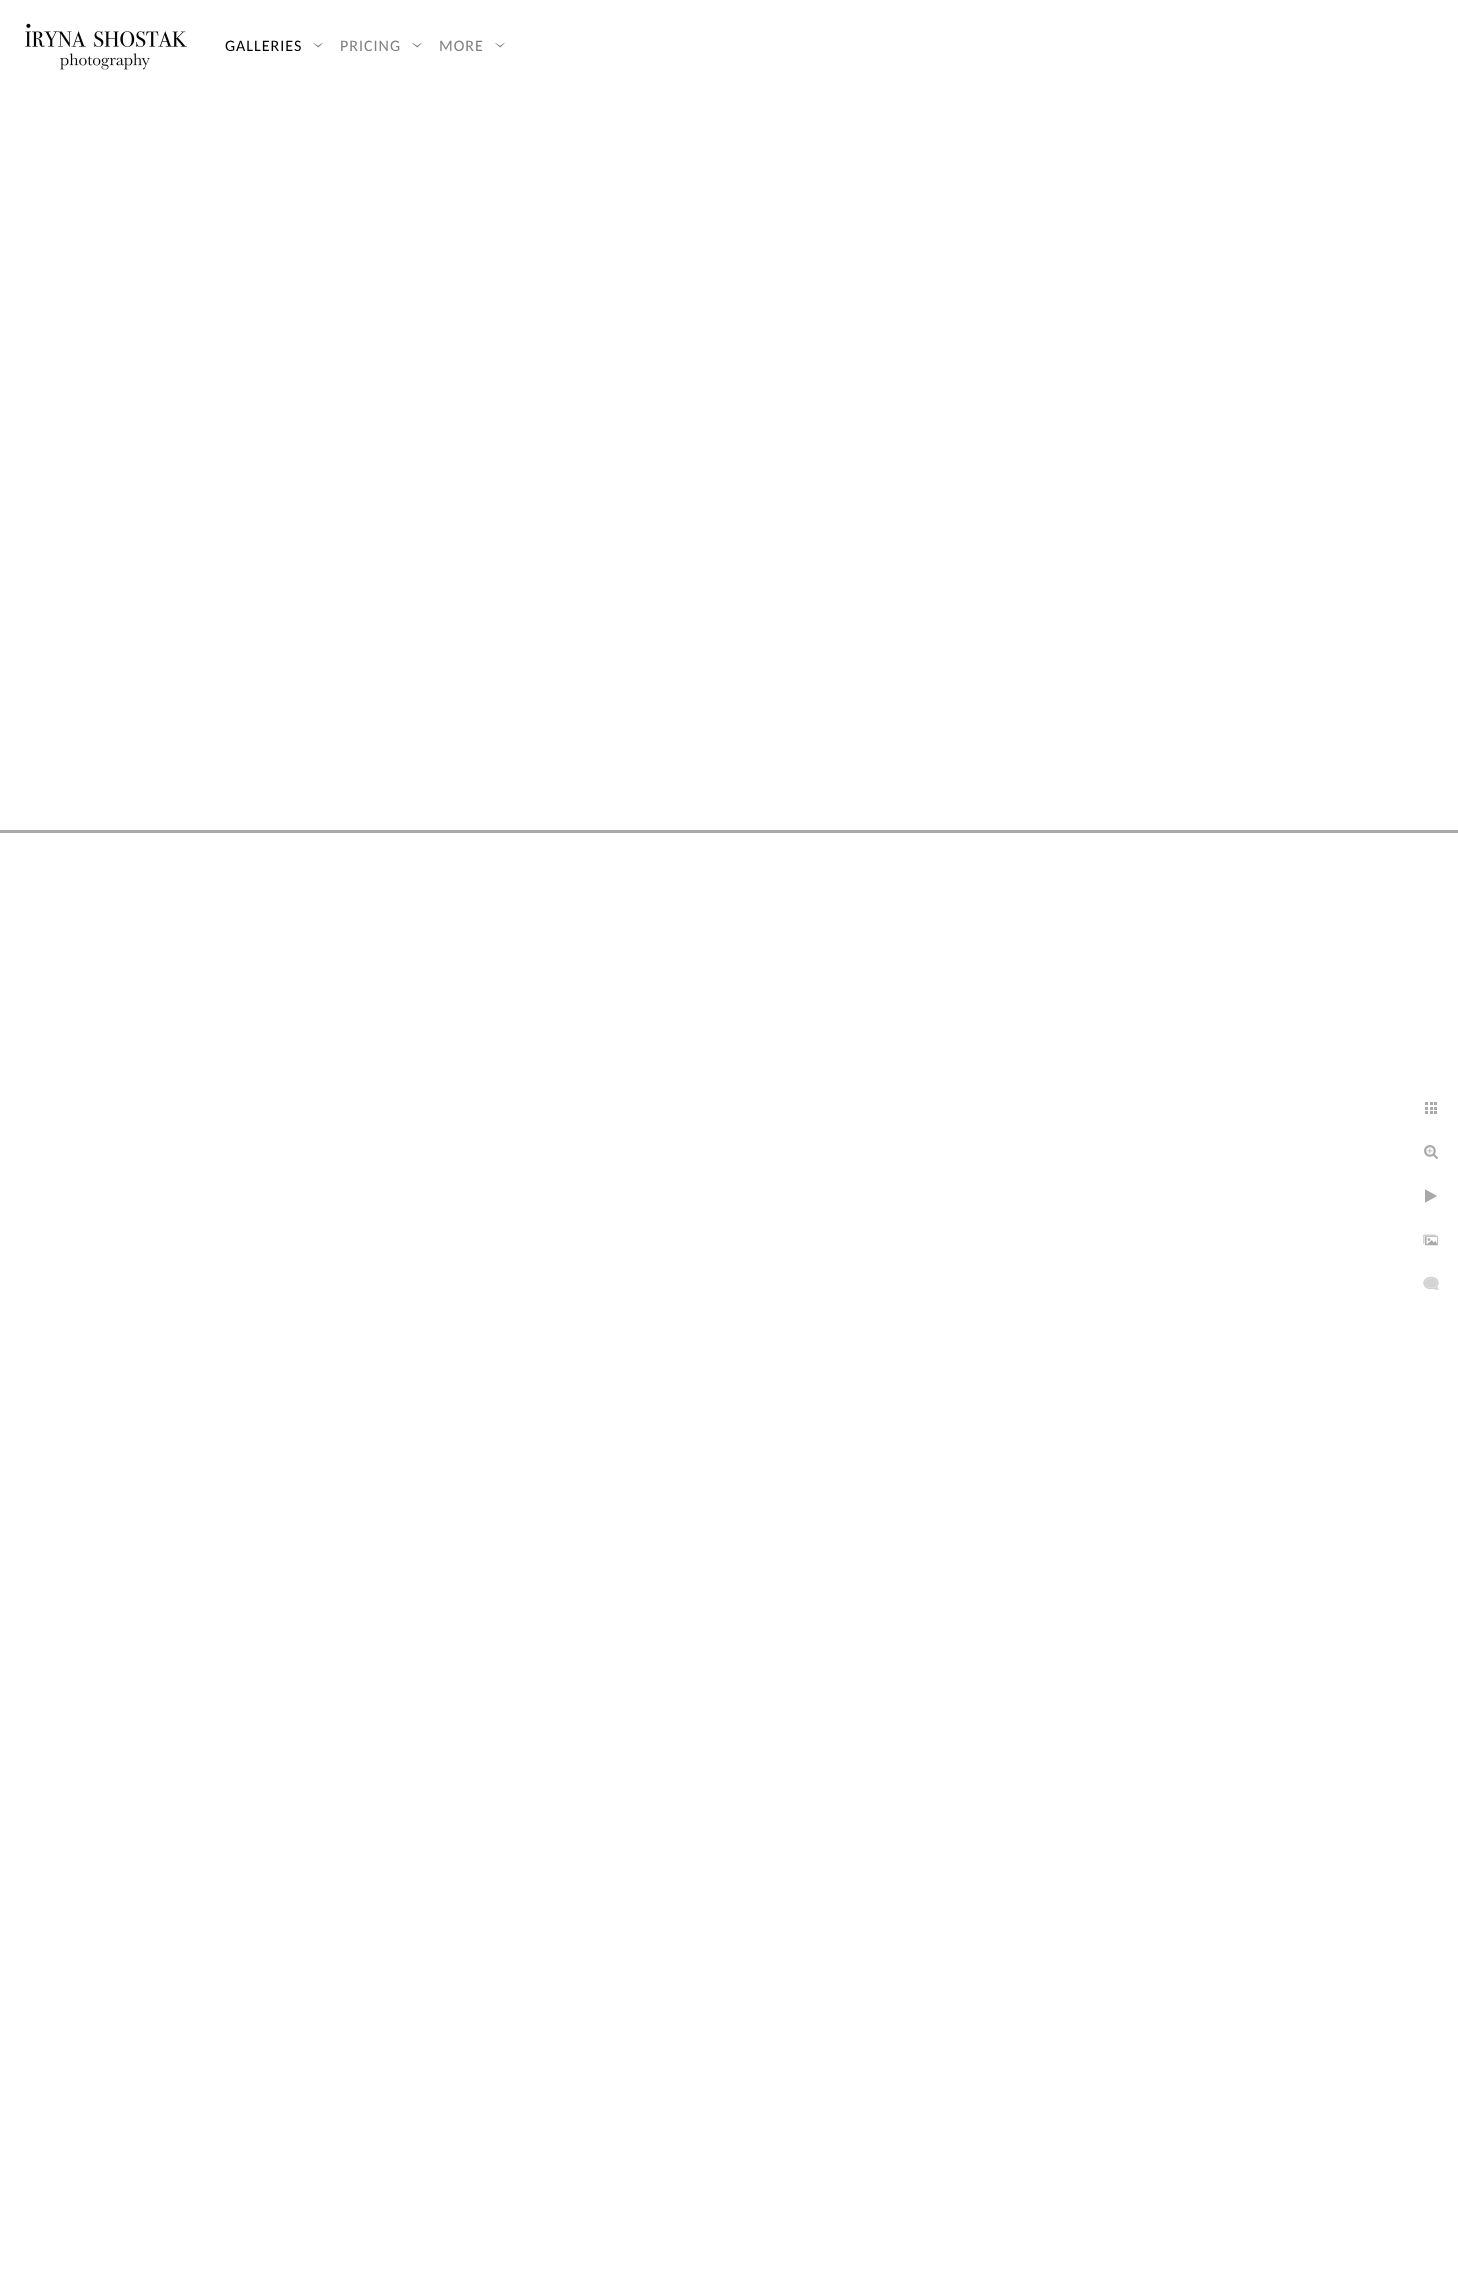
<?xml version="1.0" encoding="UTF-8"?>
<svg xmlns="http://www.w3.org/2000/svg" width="1458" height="2282">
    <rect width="100%" height="100%" fill="#FFFFFF"/>
    <image x="25" y="23" width="162" height="47" href="img_01.png"/>
    <text x="225" y="51" font-family="Carlito" font-size="16" letter-spacing="1" fill="#000000">GALLERIES</text>
    <image x="313" y="42" width="10" height="6" href="img_02.png"/>
    <text x="340" y="51" font-family="Carlito" font-size="16" letter-spacing="1" fill="#808080">PRICING</text>
    <image x="412" y="42" width="10" height="6" href="img_02.png"/>
    <text x="439" y="51" font-family="Carlito" font-size="16" letter-spacing="1" fill="#808080">MORE</text>
    <image x="495" y="42" width="10" height="6" href="img_02.png"/>
    <rect x="0" y="830" width="1458" height="3" fill="#A9A9A9"/>
    <image x="1425" y="1102" width="12" height="12" href="img_03.png"/>
    <image x="1424" y="1145" width="14" height="14" href="img_04.png"/>
    <image x="1425" y="1189" width="12" height="14" href="img_05.png"/>
    <image x="1423" y="1234" width="15" height="12" href="img_06.png"/>
    <image x="1423" y="1276" width="16" height="14" href="img_07.png"/>
</svg>
